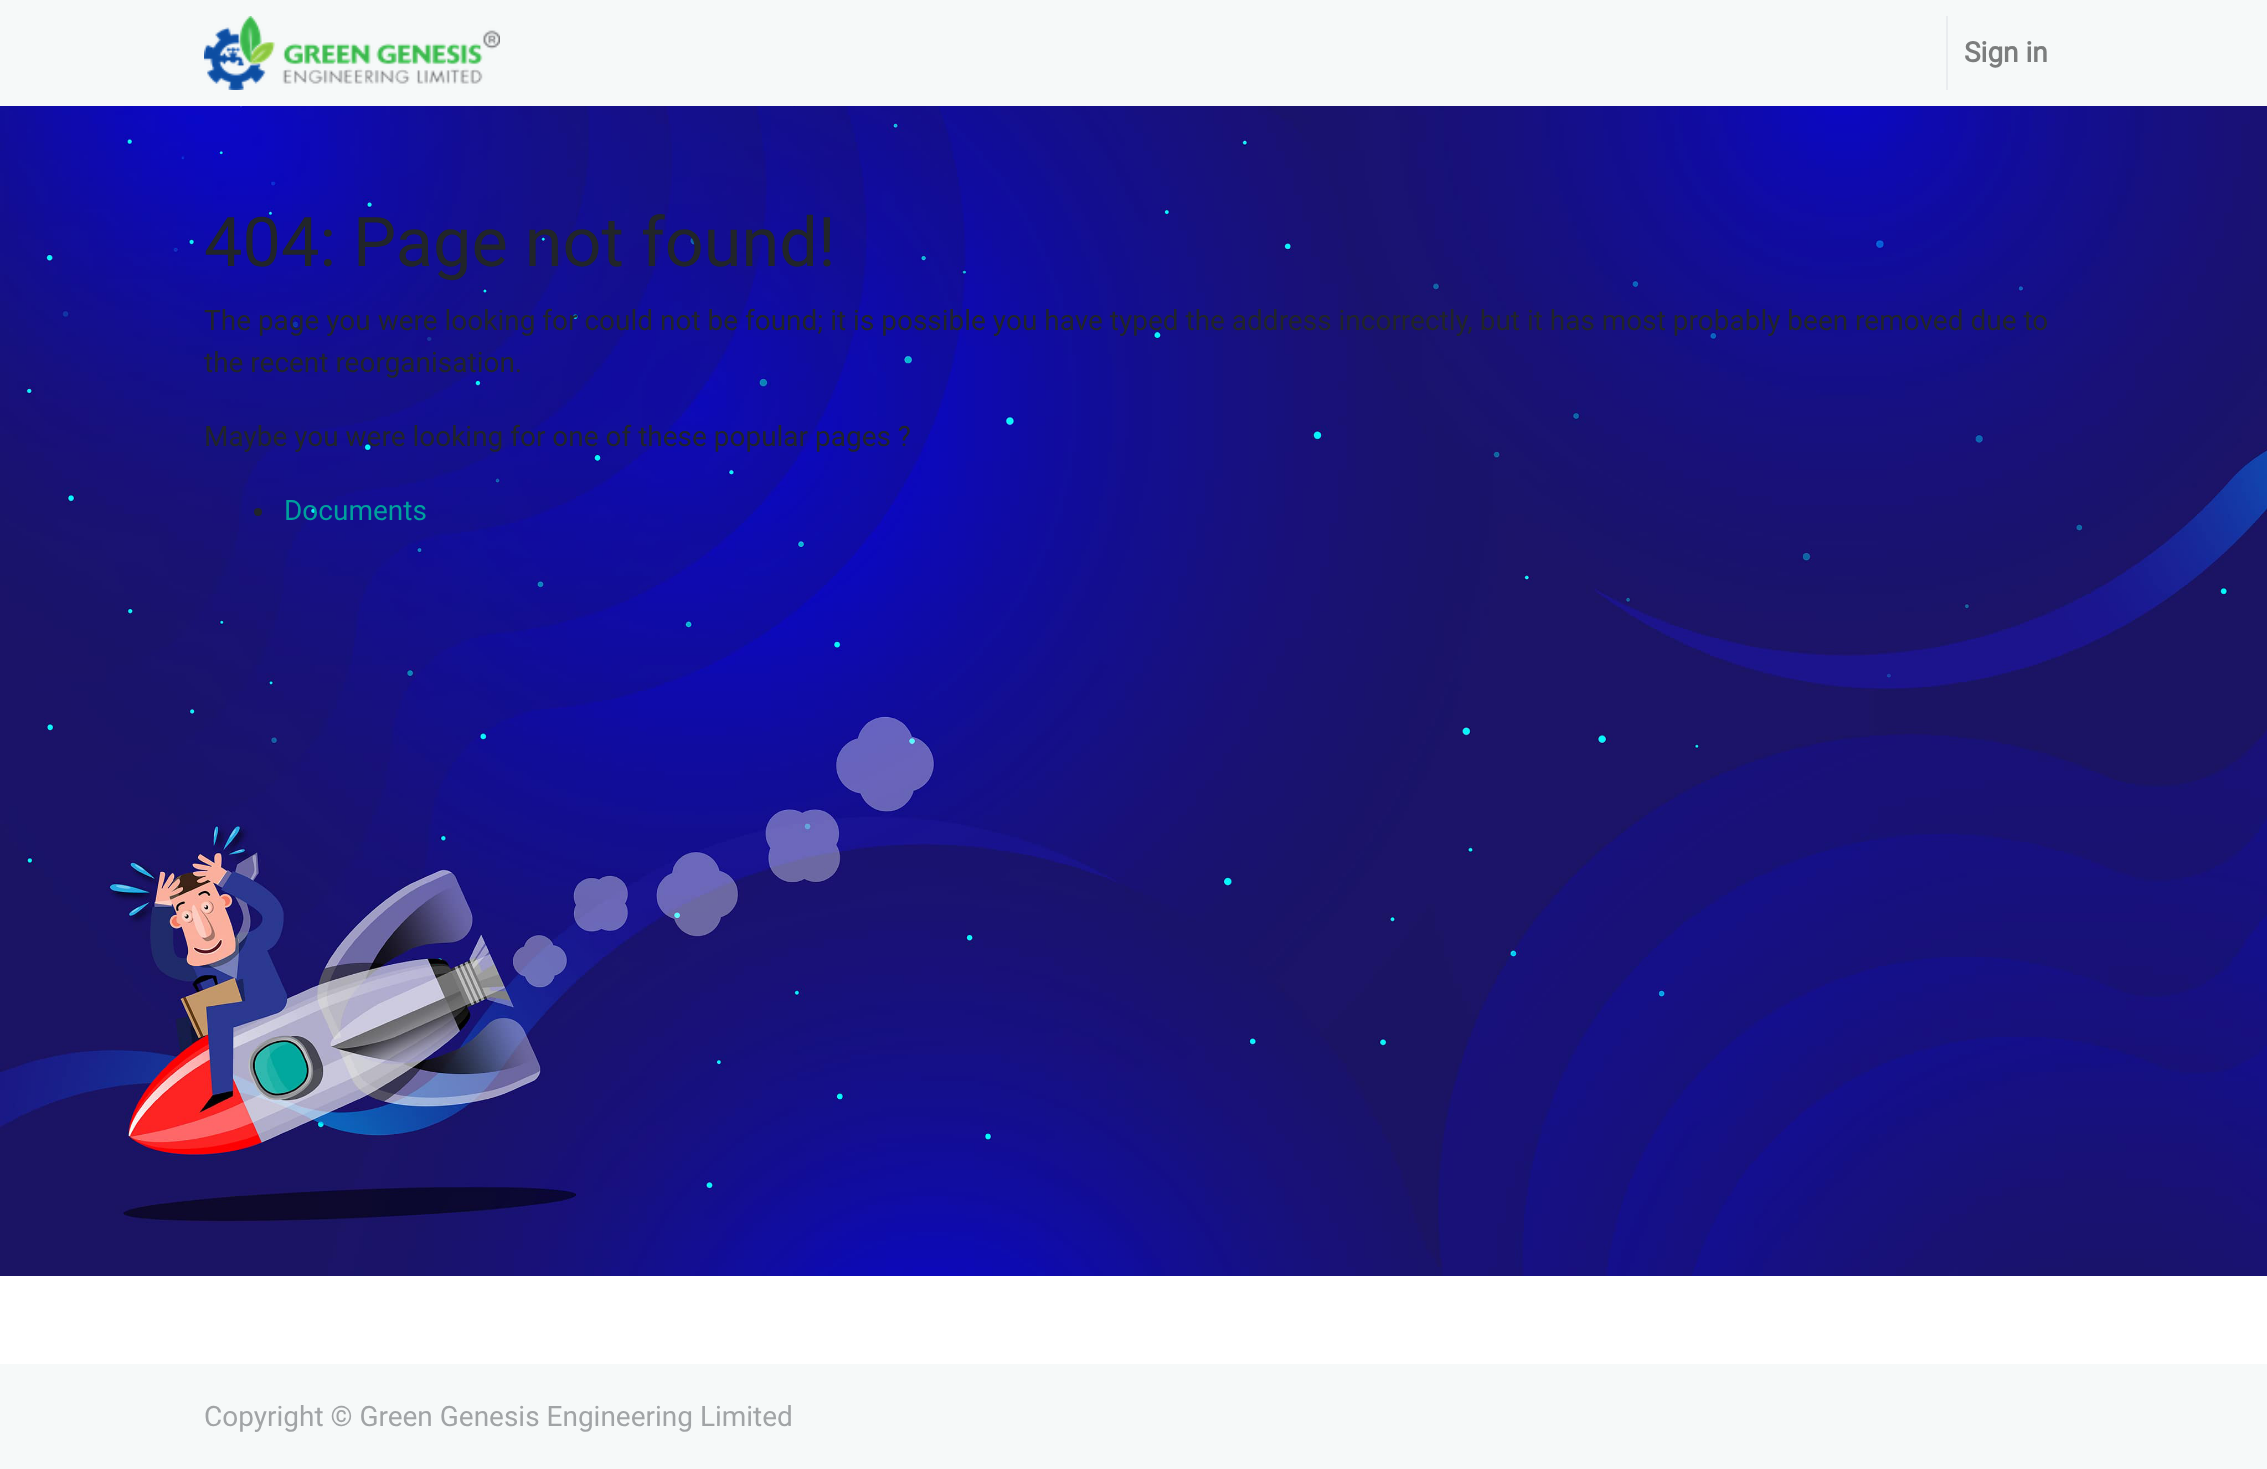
<?xml version="1.0" encoding="UTF-8"?>
<svg xmlns="http://www.w3.org/2000/svg" width="2267" height="1469">
    <rect width="100%" height="100%" fill="#FFFFFF"/>
    <image x="0" y="106" width="2267" height="1170" href="img_01.png"/>
    <rect x="0" y="0" width="2267" height="106" fill="#F6F9F9"/>
    <image x="204" y="16" width="296" height="74" href="img_02.png"/>
    <rect x="1946" y="16" width="2" height="74" fill="#E9ECEF"/>
    <text x="1964" y="62" font-family="Roboto" font-size="28" font-weight="700" fill="#7B7D7D">Sign in</text>
    <text x="204" y="266" font-family="Roboto" font-size="68.5" fill="#212529">404: Page not found!</text>
    <text font-family="Roboto" font-size="28" fill="#212529">
        <tspan x="204" y="330">The page you were looking for could not be found; it is possible you have typed the address incorrectly, but it has most probably been removed due to</tspan>
        <tspan x="204" y="372">the recent reorganisation.</tspan>
    </text>
    <text x="204" y="446" font-family="Roboto" font-size="28" fill="#212529">Maybe you were looking for one of these popular pages ?</text>
    <circle cx="258" cy="512" r="4" fill="#212529"/>
    <text x="284" y="520" font-family="Roboto" font-size="28" fill="#00A09D">Documents</text>
    <rect x="0" y="1364" width="2267" height="105" fill="#F6F9F9"/>
    <text x="204" y="1426" font-family="Roboto" font-size="28" fill="#A1A4A6">Copyright © Green Genesis Engineering Limited</text>
</svg>
